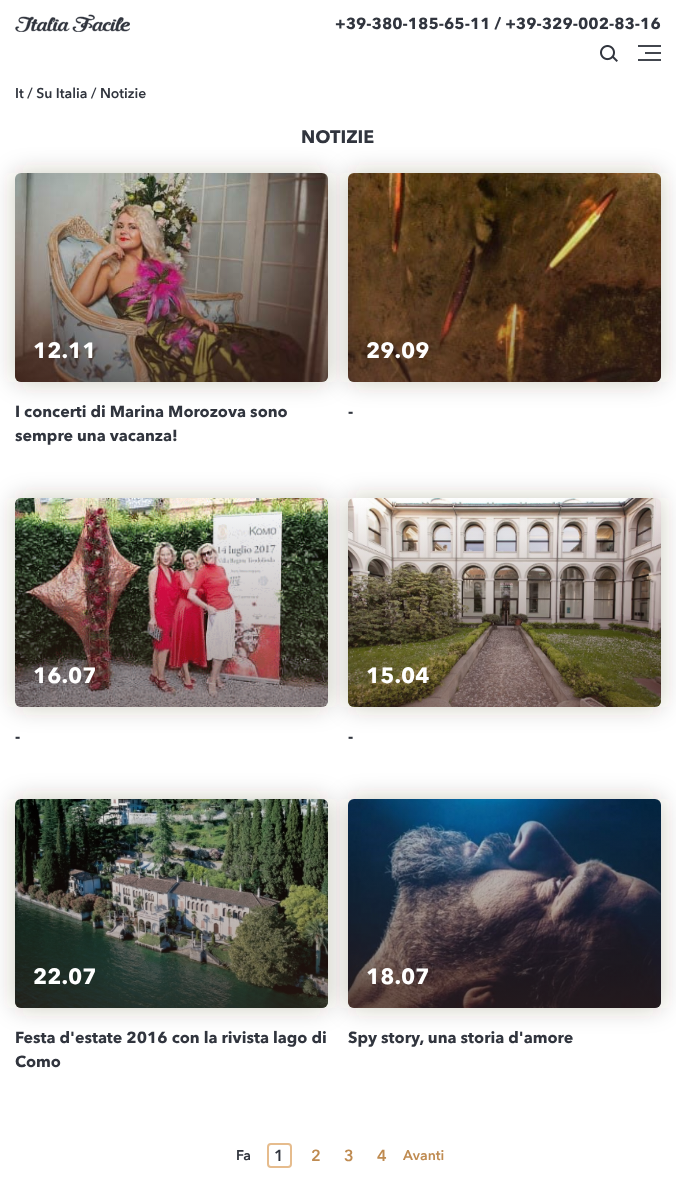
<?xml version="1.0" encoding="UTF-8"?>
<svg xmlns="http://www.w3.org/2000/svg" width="676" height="1196">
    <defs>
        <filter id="blur1" x="-50%" y="-200%" width="200%" height="500%"><feGaussianBlur stdDeviation="12.5"/></filter>
        <linearGradient id="g1" gradientUnits="userSpaceOnUse" x1="172" y1="382" x2="172" y2="173"><stop offset="0" stop-color="#46271F" stop-opacity="0.5"/><stop offset="1" stop-color="#46271F" stop-opacity="0"/></linearGradient>
        <linearGradient id="g2" gradientUnits="userSpaceOnUse" x1="505" y1="382" x2="505" y2="173"><stop offset="0" stop-color="#46271F" stop-opacity="0.5"/><stop offset="1" stop-color="#46271F" stop-opacity="0"/></linearGradient>
        <linearGradient id="g3" gradientUnits="userSpaceOnUse" x1="172" y1="707" x2="172" y2="498"><stop offset="0" stop-color="#46271F" stop-opacity="0.5"/><stop offset="1" stop-color="#46271F" stop-opacity="0"/></linearGradient>
        <linearGradient id="g4" gradientUnits="userSpaceOnUse" x1="505" y1="707" x2="505" y2="498"><stop offset="0" stop-color="#46271F" stop-opacity="0.5"/><stop offset="1" stop-color="#46271F" stop-opacity="0"/></linearGradient>
        <linearGradient id="g5" gradientUnits="userSpaceOnUse" x1="172" y1="1008" x2="172" y2="799"><stop offset="0" stop-color="#46271F" stop-opacity="0.5"/><stop offset="1" stop-color="#46271F" stop-opacity="0"/></linearGradient>
        <linearGradient id="g6" gradientUnits="userSpaceOnUse" x1="505" y1="1008" x2="505" y2="799"><stop offset="0" stop-color="#46271F" stop-opacity="0.5"/><stop offset="1" stop-color="#46271F" stop-opacity="0"/></linearGradient>
    </defs>
    <rect width="100%" height="100%" fill="#FFFFFF"/>
    <image x="15" y="14" width="115" height="18" href="img_01.png"/>
    <text x="335" y="29" font-family="'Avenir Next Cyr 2'" font-size="16" font-weight="700" fill="#31353E">+39-380-185-65-11 / +39-329-002-83-16</text>
    <image x="600" y="45" width="18" height="17" href="img_02.png"/>
    <rect x="638" y="45" width="23" height="2" fill="#42464E"/>
    <rect x="645" y="52" width="16" height="2" fill="#42464E"/>
    <rect x="638" y="59" width="23" height="2" fill="#42464E"/>
    <text x="15" y="98" font-family="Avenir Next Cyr" font-size="14" font-weight="700" fill="#31353E">It / Su Italia / Notizie</text>
    <text x="301" y="143" font-family="'Avenir Next Cyr 2'" font-size="18" font-weight="700" fill="#31353E">NOTIZIE</text>
    <rect x="15" y="173" width="313" height="209" rx="6" fill="#412B14" fill-opacity="0.25" filter="url(#blur1)"/>
    <image x="15" y="173" width="313" height="209" href="img_03.png"/>
    <rect x="348" y="173" width="313" height="209" rx="6" fill="#412B14" fill-opacity="0.25" filter="url(#blur1)"/>
    <rect x="15" y="173" width="313" height="209" rx="6" fill="url(#g1)"/>
    <text x="33" y="358" font-family="'Avenir Next Cyr 2'" font-size="22" font-weight="700" fill="#FFFFFF">12.11</text>
    <text font-family="'Avenir Next Cyr 2'" font-size="16" font-weight="700" fill="#31353E">
        <tspan x="15" y="417">I concerti di Marina Morozova sono</tspan>
        <tspan x="15" y="441">sempre una vacanza!</tspan>
    </text>
    <image x="348" y="173" width="313" height="209" href="img_04.png"/>
    <rect x="348" y="173" width="313" height="209" rx="6" fill="url(#g2)"/>
    <text x="366" y="358" font-family="'Avenir Next Cyr 2'" font-size="22" font-weight="700" fill="#FFFFFF">29.09</text>
    <text x="348" y="417" font-family="'Avenir Next Cyr 2'" font-size="16" font-weight="700" fill="#31353E">-</text>
    <rect x="15" y="498" width="313" height="209" rx="6" fill="#412B14" fill-opacity="0.25" filter="url(#blur1)"/>
    <image x="15" y="498" width="313" height="209" href="img_05.png"/>
    <rect x="348" y="498" width="313" height="209" rx="6" fill="#412B14" fill-opacity="0.25" filter="url(#blur1)"/>
    <rect x="15" y="498" width="313" height="209" rx="6" fill="url(#g3)"/>
    <text x="33" y="683" font-family="'Avenir Next Cyr 2'" font-size="22" font-weight="700" fill="#FFFFFF">16.07</text>
    <text x="15" y="742" font-family="'Avenir Next Cyr 2'" font-size="16" font-weight="700" fill="#31353E">-</text>
    <image x="348" y="498" width="313" height="209" href="img_06.png"/>
    <rect x="348" y="498" width="313" height="209" rx="6" fill="url(#g4)"/>
    <text x="366" y="683" font-family="'Avenir Next Cyr 2'" font-size="22" font-weight="700" fill="#FFFFFF">15.04</text>
    <text x="348" y="742" font-family="'Avenir Next Cyr 2'" font-size="16" font-weight="700" fill="#31353E">-</text>
    <rect x="15" y="799" width="313" height="209" rx="6" fill="#412B14" fill-opacity="0.25" filter="url(#blur1)"/>
    <image x="15" y="799" width="313" height="209" href="img_07.png"/>
    <rect x="348" y="799" width="313" height="209" rx="6" fill="#412B14" fill-opacity="0.25" filter="url(#blur1)"/>
    <rect x="15" y="799" width="313" height="209" rx="6" fill="url(#g5)"/>
    <text x="33" y="984" font-family="'Avenir Next Cyr 2'" font-size="22" font-weight="700" fill="#FFFFFF">22.07</text>
    <text font-family="'Avenir Next Cyr 2'" font-size="16" font-weight="700" fill="#31353E">
        <tspan x="15" y="1043">Festa d'estate 2016 con la rivista lago di</tspan>
        <tspan x="15" y="1067">Como</tspan>
    </text>
    <image x="348" y="799" width="313" height="209" href="img_08.png"/>
    <rect x="348" y="799" width="313" height="209" rx="6" fill="url(#g6)"/>
    <text x="366" y="984" font-family="'Avenir Next Cyr 2'" font-size="22" font-weight="700" fill="#FFFFFF">18.07</text>
    <text x="348" y="1043" font-family="'Avenir Next Cyr 2'" font-size="16" font-weight="700" fill="#31353E">Spy story, una storia d'amore</text>
    <text x="236" y="1160" font-family="Avenir Next Cyr" font-size="14" font-weight="700" fill="#31353E">Fa</text>
    <rect x="268" y="1144" width="23" height="23" rx="3" fill="none" stroke="#E6BC8D" stroke-width="2"/>
    <text x="274" y="1161" font-family="Avenir Next Cyr" font-size="16" font-weight="700" fill="#31353E">1</text>
    <text x="311" y="1161" font-family="Avenir Next Cyr" font-size="16" font-weight="700" fill="#BF8B51">2</text>
    <text x="344" y="1161" font-family="Avenir Next Cyr" font-size="16" font-weight="700" fill="#BF8B51">3</text>
    <text x="377" y="1161" font-family="Avenir Next Cyr" font-size="16" font-weight="700" fill="#BF8B51">4</text>
    <text x="403" y="1160" font-family="Avenir Next Cyr" font-size="14" font-weight="700" fill="#BF8B51">Avanti</text>
</svg>
